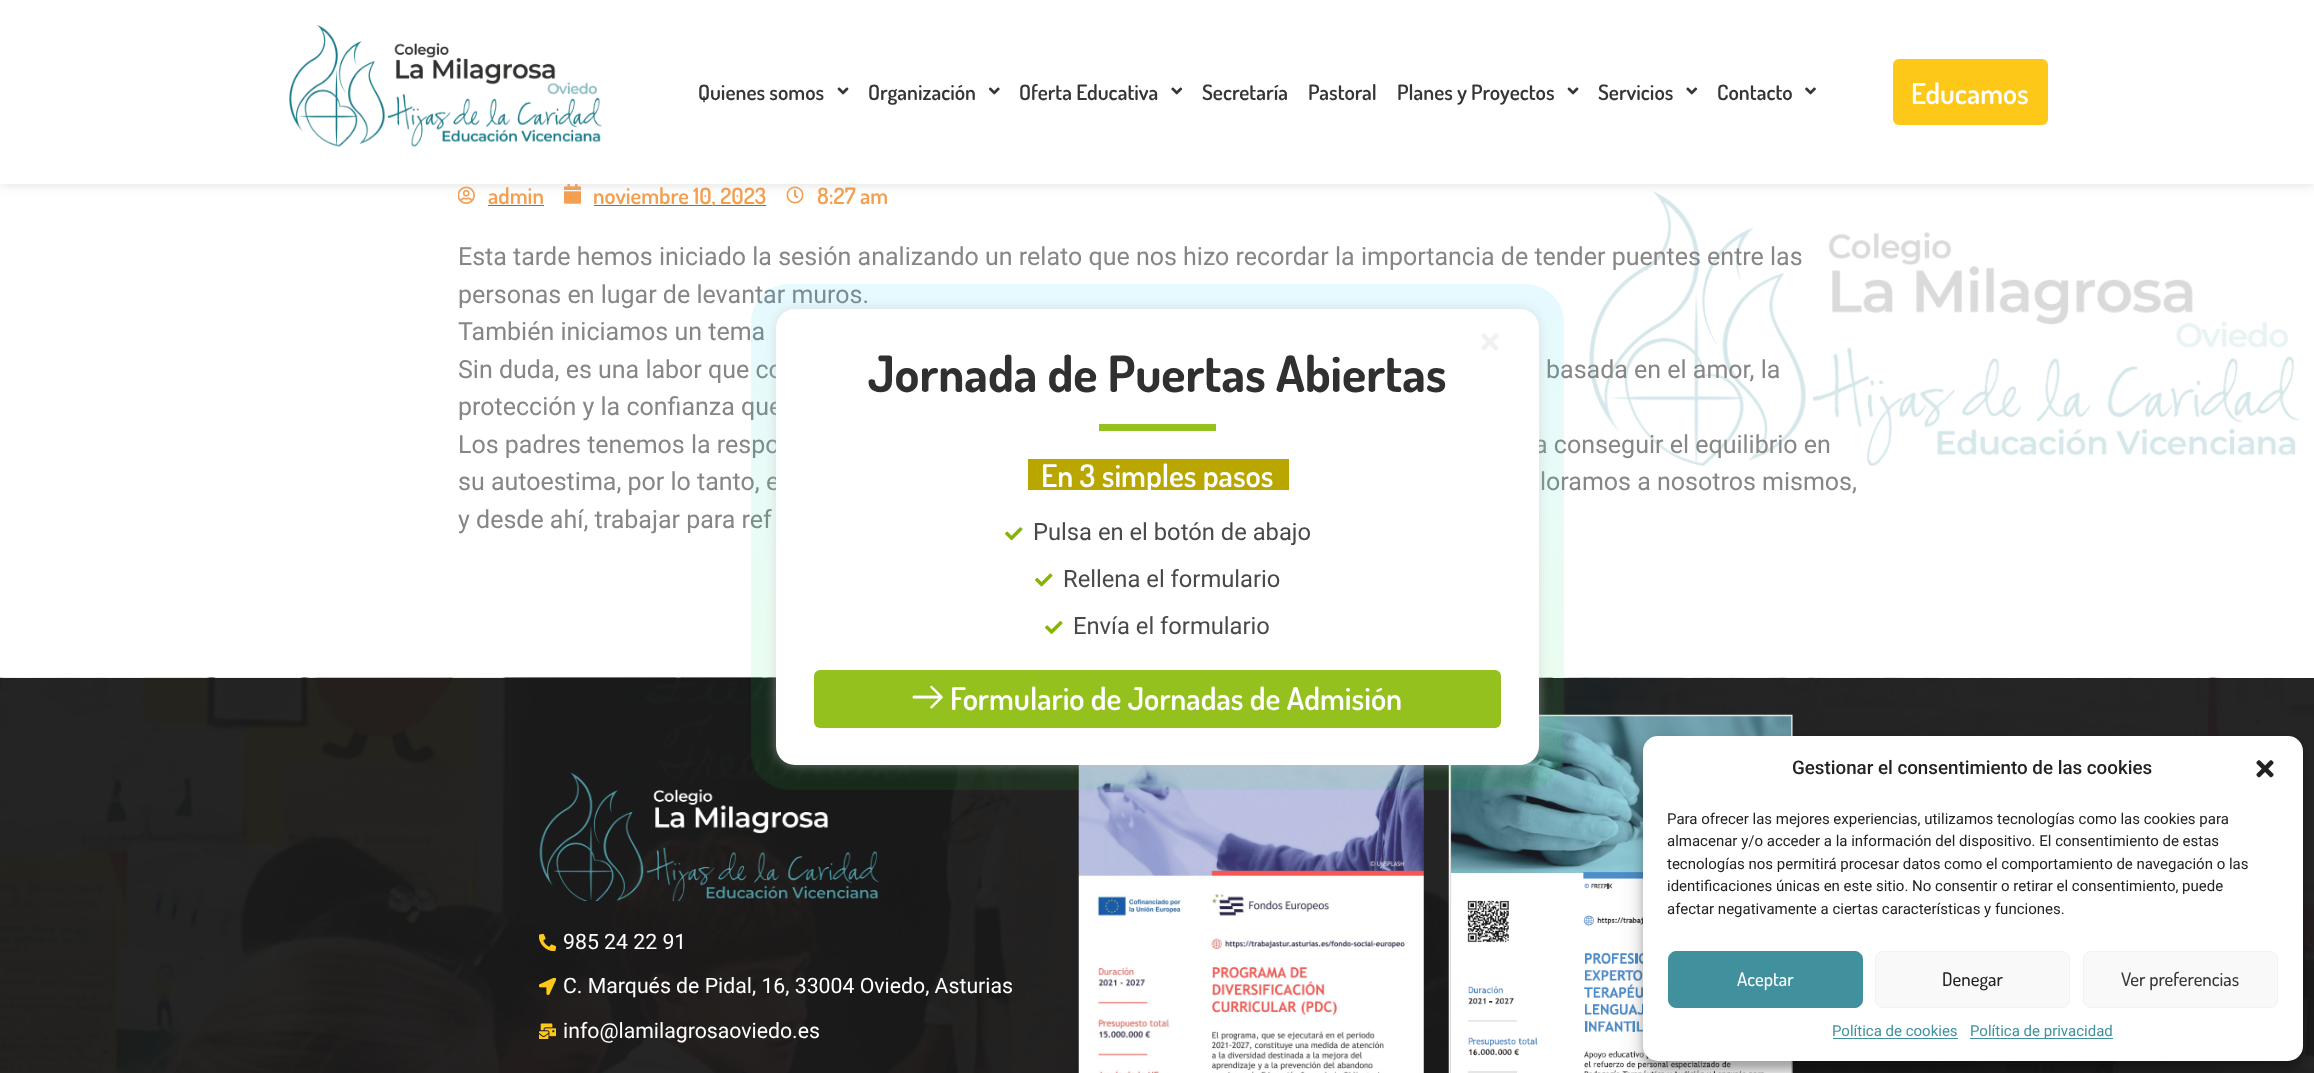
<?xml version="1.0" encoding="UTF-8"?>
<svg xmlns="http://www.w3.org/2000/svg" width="2314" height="1073">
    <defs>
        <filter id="blur1" x="-50%" y="-200%" width="200%" height="500%"><feGaussianBlur stdDeviation="6"/></filter>
        <linearGradient id="g1" gradientUnits="userSpaceOnUse" x1="1158" y1="284" x2="1158" y2="790"><stop offset="0" stop-color="#06C8FF" stop-opacity="0.1"/><stop offset="1" stop-color="#08ED23" stop-opacity="0.08"/></linearGradient>
        <filter id="blur2" x="-50%" y="-200%" width="200%" height="500%"><feGaussianBlur stdDeviation="4"/></filter>
        <filter id="blur3" x="-50%" y="-200%" width="200%" height="500%"><feGaussianBlur stdDeviation="12.5"/></filter>
    </defs>
    <rect width="100%" height="100%" fill="#FFFFFF"/>
    <image x="1589" y="191" width="711" height="275" href="img_06.png"/>
    <image x="458" y="186" width="17" height="18" href="img_07.png"/>
    <image x="564" y="184" width="17" height="20" href="img_08.png"/>
    <image x="786" y="186" width="18" height="18" href="img_09.png"/>
    <rect x="0" y="0" width="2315" height="184" fill="#BBBBBB" fill-opacity="0.5" filter="url(#blur1)"/>
    <rect x="0" y="0" width="2314" height="184" fill="#FFFFFF"/>
    <image x="289" y="25" width="313" height="122" href="img_01.png"/>
    <text x="698" y="100" font-family="Dosis" font-size="21.25" font-weight="600" fill="#363636">Quienes somos</text>
    <image x="837" y="87" width="12" height="8" href="img_02.png"/>
    <text x="868" y="100" font-family="Dosis" font-size="21.25" font-weight="600" fill="#363636">Organización</text>
    <image x="988" y="87" width="12" height="8" href="img_03.png"/>
    <text x="1019" y="100" font-family="Dosis" font-size="21.25" font-weight="600" fill="#363636">Oferta Educativa</text>
    <image x="1171" y="87" width="12" height="8" href="img_04.png"/>
    <text x="1202" y="100" font-family="Dosis" font-size="21.25" font-weight="600" fill="#363636">Secretaría</text>
    <text x="1308" y="100" font-family="Dosis" font-size="21.25" font-weight="600" fill="#363636">Pastoral</text>
    <text x="1397" y="100" font-family="Dosis" font-size="21.25" font-weight="600" fill="#363636">Planes y Proyectos</text>
    <image x="1567" y="87" width="12" height="8" href="img_02.png"/>
    <text x="1598" y="100" font-family="Dosis" font-size="21.25" font-weight="600" fill="#363636">Servicios</text>
    <image x="1686" y="87" width="12" height="8" href="img_04.png"/>
    <text x="1717" y="100" font-family="Dosis" font-size="21.25" font-weight="600" fill="#363636">Contacto</text>
    <image x="1805" y="87" width="11" height="8" href="img_05.png"/>
    <rect x="1893" y="59" width="155" height="66" rx="6" fill="#FDC817"/>
    <text x="1911" y="104" font-family="Dosis" font-size="28.75" font-weight="600" fill="#FFFFFF">Educamos</text>
    <text x="488" y="204" font-family="Dosis" font-size="22.5" font-weight="600" fill="#F49E50">admin</text>
    <rect x="488" y="205" width="56" height="1" fill="#D14574"/>
    <rect x="594" y="205" width="172" height="1" fill="#D14574"/>
    <text x="593" y="204" font-family="Dosis" font-size="22.5" font-weight="600" fill="#F49E50">noviembre 10, 2023</text>
    <text x="817" y="204" font-family="Dosis" font-size="22.5" font-weight="600" fill="#F49E50">8:27 am</text>
    <text font-family="Roboto" font-size="25" fill="#868686">
        <tspan x="458" y="265">Esta tarde hemos iniciado la sesión analizando un relato que nos hizo recordar la importancia de tender puentes entre las</tspan>
        <tspan x="458" y="303">personas en lugar de levantar muros.</tspan>
        <tspan x="458" y="340">También iniciamos un tema</tspan>
        <tspan x="458" y="378">Sin duda, es una labor que co</tspan>
    </text>
    <text x="1546" y="378" font-family="Roboto" font-size="25" fill="#868686">basada en el amor, la</text>
    <text font-family="Roboto" font-size="25" fill="#868686">
        <tspan x="458" y="415">protección y la confianza que</tspan>
        <tspan x="458" y="453">Los padres tenemos la respo</tspan>
    </text>
    <text x="1534" y="453" font-family="Roboto" font-size="25" fill="#868686">a conseguir el equilibrio en</text>
    <text x="458" y="490" font-family="Roboto" font-size="25" fill="#868686">su autoestima, por lo tanto, e</text>
    <text x="1540" y="490" font-family="Roboto" font-size="25" fill="#868686">loramos a nosotros mismos,</text>
    <text x="458" y="528" font-family="Roboto" font-size="25" fill="#868686">y desde ahí, trabajar para ref</text>
    <image x="0" y="677" width="2314" height="396" href="img_10.png"/>
    <image x="539" y="772" width="341" height="129" href="img_11.png"/>
    <image x="539" y="934" width="17" height="17" href="img_12.png"/>
    <text x="563" y="949" font-family="Roboto" font-size="21.25" fill="#FFFFFF">985 24 22 91</text>
    <image x="539" y="978" width="17" height="17" href="img_13.png"/>
    <text x="563" y="993" font-family="Roboto" font-size="21.25" fill="#FFFFFF">C. Marqués de Pidal, 16, 33004 Oviedo, Asturias</text>
    <image x="539" y="1023" width="17" height="16" href="img_14.png"/>
    <text x="563" y="1038" font-family="Roboto" font-size="21.25" fill="#FFFFFF">info@lamilagrosaoviedo.es</text>
    <image x="1078" y="765" width="346" height="308" href="img_15.png"/>
    <image x="1448" y="714" width="345" height="359" href="img_16.png"/>
    <rect x="751" y="284" width="813" height="506" rx="38" fill="url(#g1)"/>
    <rect x="776" y="309" width="763" height="456" rx="19" fill="#C4C4C4" fill-opacity="0.5" filter="url(#blur1)"/>
    <rect x="776" y="309" width="763" height="456" rx="19" fill="#FFFFFF"/>
    <image x="1481" y="333" width="18" height="18" href="img_17.png"/>
    <text x="868" y="392" font-family="Dosis" font-size="50" font-weight="700" fill="#303030">Jornada de Puertas Abiertas</text>
    <rect x="1099" y="424" width="117" height="7" fill="#95C11F"/>
    <rect x="1028" y="459" width="261" height="31" fill="#B9A700"/>
    <text x="1041" y="487" font-family="Dosis" font-size="31.25" font-weight="600" fill="#FFFFFF">En 3 simples pasos</text>
    <image x="1005" y="527" width="18" height="14" href="img_18.png"/>
    <text x="1033" y="540" font-family="Roboto" font-size="23.75" fill="#494949">Pulsa en el botón de abajo</text>
    <image x="1035" y="573" width="18" height="14" href="img_19.png"/>
    <text x="1063" y="587" font-family="Roboto" font-size="23.75" fill="#494949">Rellena el formulario</text>
    <image x="1045" y="621" width="18" height="13" href="img_20.png"/>
    <text x="1073" y="634" font-family="Roboto" font-size="23.75" fill="#494949">Envía el formulario</text>
    <rect x="814" y="670" width="687" height="58" rx="6" fill="#95C11F"/>
    <image x="912" y="685" width="31" height="24" href="img_21.png"/>
    <text x="950" y="710" font-family="Dosis" font-size="31.25" font-weight="600" fill="#FFFFFF">Formulario de Jornadas de Admisión</text>
    <rect x="1643" y="744" width="660" height="325" rx="15" fill="#000000" fill-opacity="0.23" filter="url(#blur2)"/>
    <rect x="1643" y="749" width="660" height="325" rx="15" fill="#000000" fill-opacity="0.19" filter="url(#blur3)"/>
    <rect x="1643" y="736" width="660" height="325" rx="15" fill="#FFFFFF"/>
    <text x="1792" y="774" font-family="Roboto" font-size="18.75" font-weight="500" fill="#222222">Gestionar el consentimiento de las cookies</text>
    <image x="2256" y="760" width="18" height="18" href="img_22.png"/>
    <text font-family="Roboto" font-size="15" fill="#222222">
        <tspan x="1667" y="824">Para ofrecer las mejores experiencias, utilizamos tecnologías como las cookies para</tspan>
        <tspan x="1667" y="846">almacenar y/o acceder a la información del dispositivo. El consentimiento de estas</tspan>
        <tspan x="1667" y="869">tecnologías nos permitirá procesar datos como el comportamiento de navegación o las</tspan>
        <tspan x="1667" y="891">identificaciones únicas en este sitio. No consentir o retirar el consentimiento, puede</tspan>
        <tspan x="1667" y="914">afectar negativamente a ciertas características y funciones.</tspan>
    </text>
    <rect x="1668.5" y="951.5" width="194" height="56" rx="7.5" fill="#40919D" stroke="#40919D"/>
    <text x="1737" y="986" font-family="Dosis" font-size="18.75" font-weight="500" fill="#FFFFFF">Aceptar</text>
    <rect x="1875.5" y="951.5" width="194" height="56" rx="7.5" fill="#F9F9F9" stroke="#F2F2F2"/>
    <text x="1942" y="986" font-family="Dosis" font-size="18.75" font-weight="500" fill="#222222">Denegar</text>
    <rect x="2083.5" y="951.5" width="194" height="56" rx="7.5" fill="#F9F9F9" stroke="#F2F2F2"/>
    <text x="2121" y="986" font-family="Dosis" font-size="18.75" font-weight="500" fill="#363636">Ver preferencias</text>
    <text x="1832" y="1036" font-family="Roboto" font-size="15" fill="#40919D">Política de cookies</text>
    <rect x="1833" y="1038" width="125" height="1" fill="#40919D"/>
    <rect x="1970" y="1038" width="143" height="1" fill="#40919D"/>
    <text x="1970" y="1036" font-family="Roboto" font-size="15" fill="#40919D">Política de privacidad</text>
</svg>
